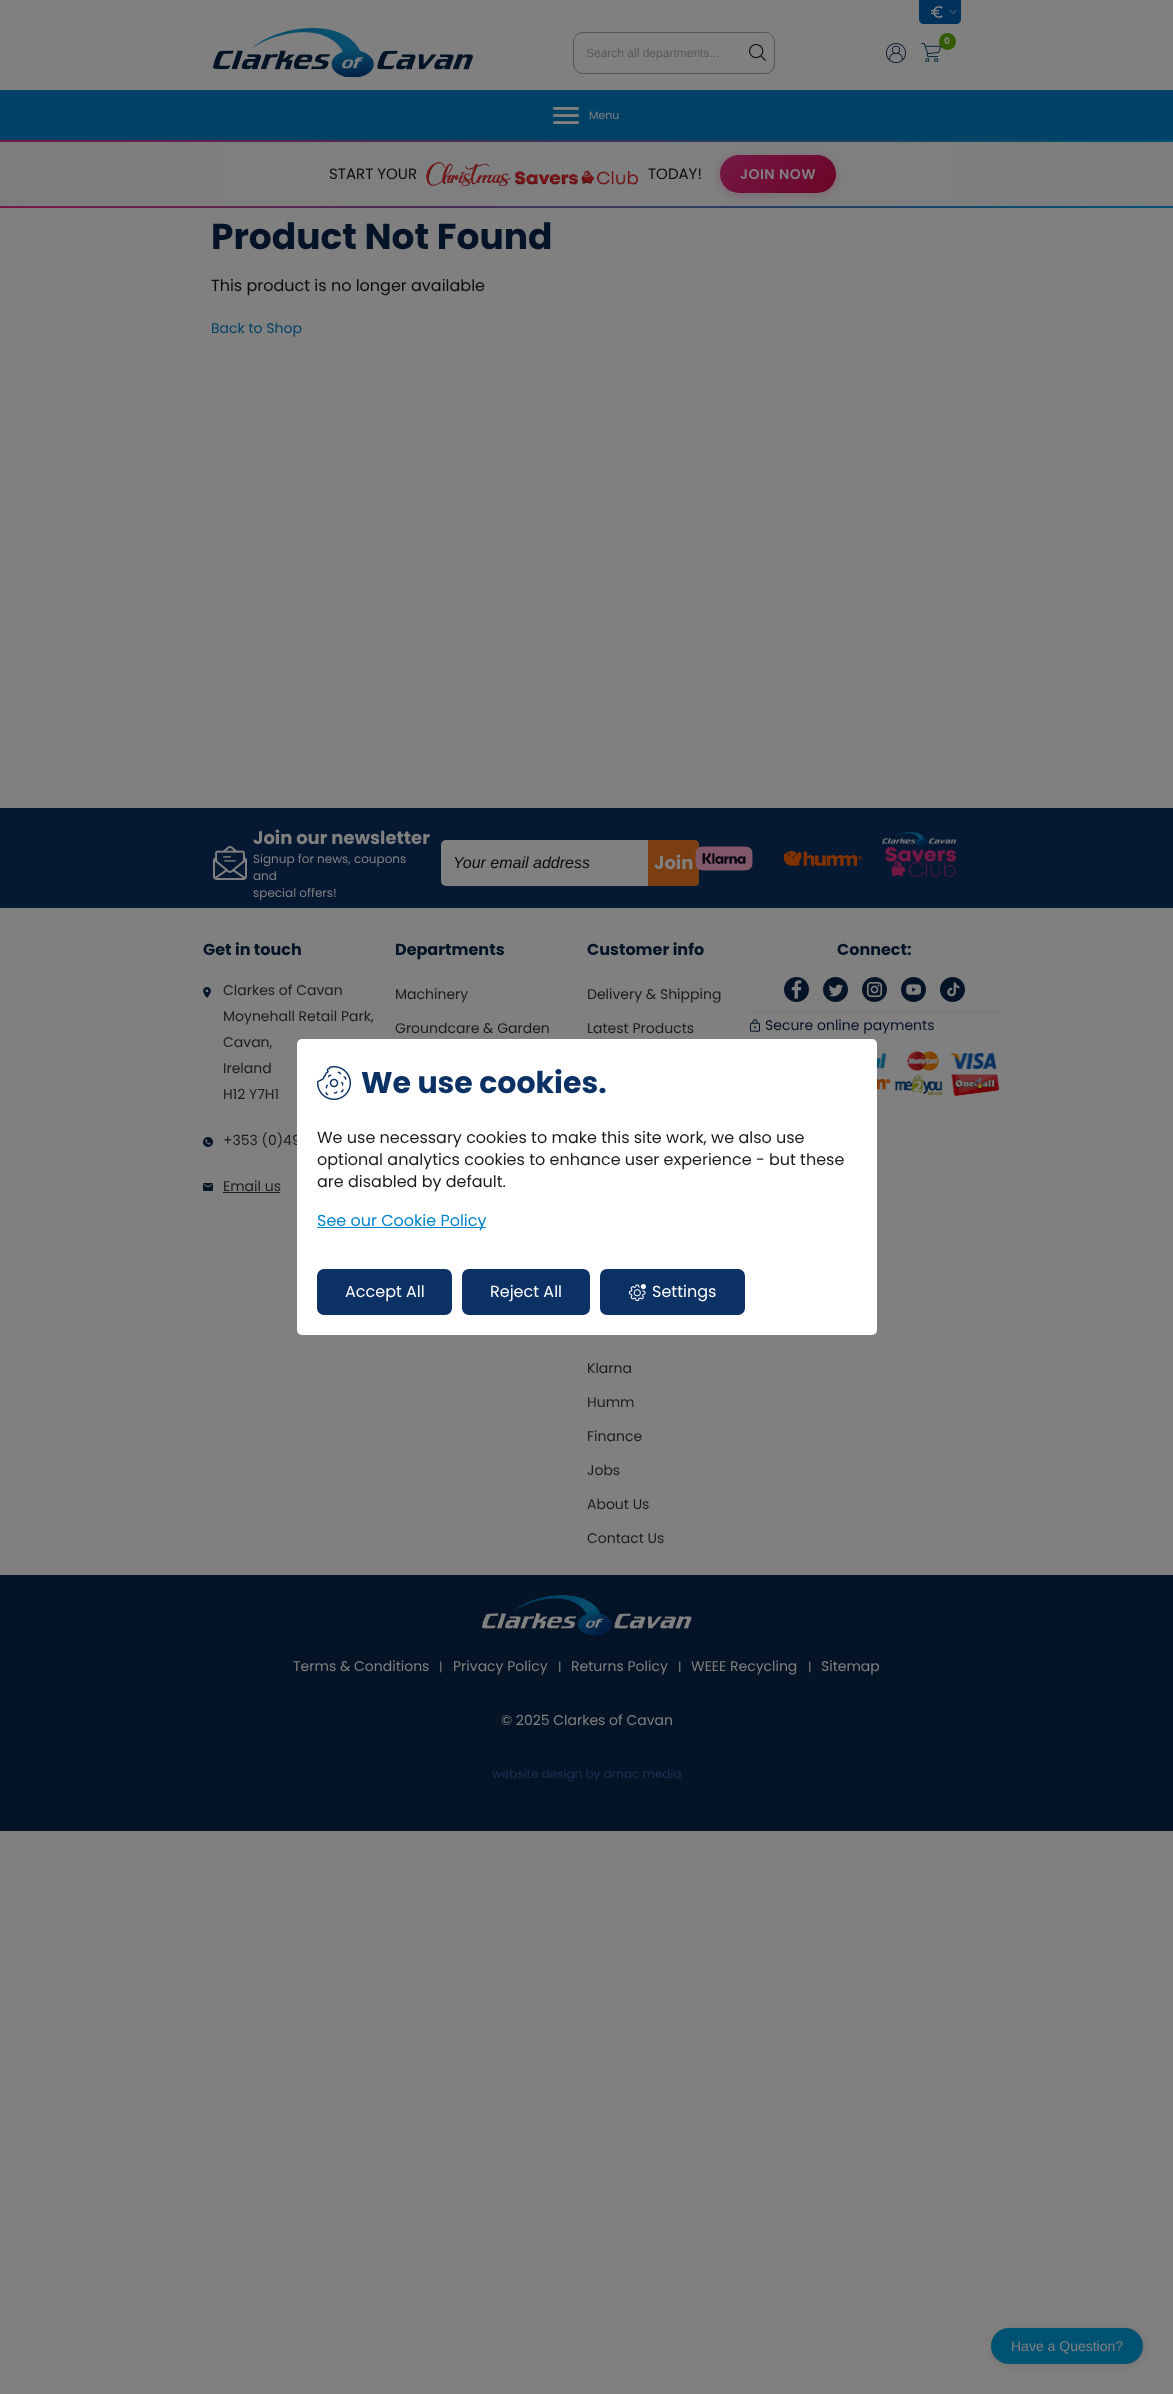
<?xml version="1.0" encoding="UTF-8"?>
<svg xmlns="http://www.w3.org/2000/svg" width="1173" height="2394">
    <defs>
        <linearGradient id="g1" gradientUnits="userSpaceOnUse" x1="0" y1="174" x2="1173" y2="174"><stop offset="0" stop-color="#7C7D7D"/><stop offset="0.5" stop-color="#808080"/><stop offset="1" stop-color="#7C7D7D"/></linearGradient>
        <linearGradient id="g2" gradientUnits="userSpaceOnUse" x1="0" y1="141" x2="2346" y2="141"><stop offset="0" stop-color="#741946"/><stop offset="0.5" stop-color="#005272"/><stop offset="1" stop-color="#741946"/></linearGradient>
        <filter id="blur1" x="-50%" y="-200%" width="200%" height="500%"><feGaussianBlur stdDeviation="4"/></filter>
        <linearGradient id="g3" gradientUnits="userSpaceOnUse" x1="740" y1="136" x2="817" y2="213"><stop offset="0" stop-color="#741946"/><stop offset="1" stop-color="#6B0326"/></linearGradient>
        <linearGradient id="g4" gradientUnits="userSpaceOnUse" x1="0" y1="207" x2="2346" y2="207"><stop offset="0" stop-color="#741946"/><stop offset="0.5" stop-color="#005272"/><stop offset="1" stop-color="#741946"/></linearGradient>
    </defs>
    <rect width="100%" height="100%" fill="#808080"/>
    <path d="M 919 -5 H 961 V 19 C 961 22 959 24 956 24 H 924 C 921 24 919 22 919 19 Z" fill="#00325B"/>
    <path d="M 956 10.5 L 953 13.5 L 950 10.5" fill="none" stroke="#808080" stroke-width="0.9" stroke-linecap="round" stroke-linejoin="round"/>
    <image x="931" y="6" width="12" height="12" href="img_01.png"/>
    <image x="213" y="28" width="260" height="49" href="img_02.png"/>
    <image x="921" y="43" width="20" height="19" href="img_03.png"/>
    <circle cx="947.5" cy="41.5" r="8.5" fill="#325B00"/>
    <text x="944" y="44" font-family="Poppins" font-size="9" font-weight="700" fill="#808080">0</text>
    <image x="886" y="43" width="20" height="20" href="img_04.png"/>
    <rect x="573.5" y="32.5" width="201" height="41" rx="9.5" fill="none" stroke="#555454"/>
    <text x="586" y="57" font-family="Liberation Sans" font-size="12" fill="#565759">Search all departments...</text>
    <image x="749" y="44" width="17" height="17" href="img_05.png"/>
    <rect x="0" y="90" width="1173" height="50" fill="#004266"/>
    <image x="553" y="107" width="26" height="17" href="img_06.png"/>
    <text x="589" y="119" font-family="Poppins" font-size="11" fill="#808080">Menu</text>
    <rect x="0" y="142" width="1173" height="64" fill="url(#g1)"/>
    <rect x="0" y="140" width="1173" height="2" fill="url(#g2)"/>
    <text x="329" y="179" font-family="Poppins" font-size="15" fill="#0D0C0C">START YOUR</text>
    <image x="426" y="162" width="212" height="24" href="img_07.png"/>
    <text x="648" y="179" font-family="Poppins" font-size="15" fill="#0D0C0C">TODAY!</text>
    <rect x="720" y="157" width="116" height="38" rx="19" fill="#741946" fill-opacity="0.25" filter="url(#blur1)"/>
    <rect x="720" y="155" width="116" height="38" rx="19" fill="url(#g3)"/>
    <text x="740" y="179" font-family="Poppins" font-size="14" font-weight="600" letter-spacing="0.5" fill="#808080">JOIN NOW</text>
    <rect x="0" y="206" width="1173" height="2" fill="url(#g4)"/>
    <text x="211" y="249" font-family="Poppins" font-size="36" font-weight="700" fill="#051327">Product Not Found</text>
    <text x="211" y="291" font-family="Poppins" font-size="16" fill="#0D0C0C">This product is no longer available</text>
    <text x="211" y="333" font-family="Poppins" font-size="14" fill="#004266">Back to Shop</text>
    <rect x="991" y="2330" width="152" height="36" rx="18" fill="#000000" fill-opacity="0.1" filter="url(#blur1)"/>
    <rect x="991" y="2328" width="152" height="36" rx="18" fill="#005272"/>
    <text x="1011" y="2351" font-family="Liberation Sans" font-size="14" fill="#808080">Have a Question?</text>
    <rect x="0" y="808" width="1173" height="100" fill="#061932"/>
    <image x="213" y="846" width="34" height="34" href="img_08.png"/>
    <text x="253" y="844" font-family="Poppins" font-size="18" font-weight="700" fill="#808080">Join our newsletter</text>
    <text font-family="Poppins" font-size="12" fill="#808080">
        <tspan x="253" y="863">Signup for news, coupons</tspan>
        <tspan x="253" y="880">and</tspan>
        <tspan x="253" y="897">special offers!</tspan>
    </text>
    <rect x="441" y="840" width="258" height="46" rx="5" fill="#808080"/>
    <text x="453" y="868" font-family="Liberation Sans" font-size="16" font-style="italic" fill="#0D0C0C">Your email address</text>
    <path d="M 648 840 H 694 C 697 840 699 842 699 845 V 881 C 699 884 697 886 694 886 H 648 Z" fill="#7A3E10"/>
    <text x="654" y="869" font-family="Poppins" font-size="18" font-weight="700" fill="#808080">Join</text>
    <image x="695" y="846" width="58" height="25" href="img_09.png"/>
    <image x="783" y="851" width="79" height="15" href="img_10.png"/>
    <image x="882" y="832" width="75" height="46" href="img_11.png"/>
    <text x="203" y="955" font-family="Poppins" font-size="16" font-weight="700" fill="#051327">Get in touch</text>
    <image x="203" y="987" width="8" height="11" href="img_12.png"/>
    <text font-family="Poppins" font-size="14" fill="#1D1C1C">
        <tspan x="223" y="995">Clarkes of Cavan</tspan>
        <tspan x="223" y="1021">Moynehall Retail Park,</tspan>
        <tspan x="223" y="1047">Cavan,</tspan>
        <tspan x="223" y="1073">Ireland</tspan>
        <tspan x="223" y="1099">H12 Y7H1</tspan>
    </text>
    <image x="203" y="1137" width="10" height="10" href="img_13.png"/>
    <text x="223" y="1145" font-family="Poppins" font-size="14" fill="#1D1C1C">+353 (0)49</text>
    <image x="203" y="1183" width="10" height="8" href="img_14.png"/>
    <text x="223" y="1191" font-family="Poppins" font-size="14" fill="#1D1C1C">Email us</text>
    <rect x="223" y="1192" width="57" height="1" fill="#1D1C1C"/>
    <text x="395" y="955" font-family="Poppins" font-size="16" font-weight="700" fill="#051327">Departments</text>
    <text x="395" y="999" font-family="Poppins" font-size="14" fill="#1D1C1C">Machinery</text>
    <text x="395" y="1033" font-family="Poppins" font-size="14" fill="#1D1C1C">Groundcare &amp; Garden</text>
    <text x="587" y="955" font-family="Poppins" font-size="16" font-weight="700" fill="#051327">Customer info</text>
    <text x="587" y="999" font-family="Poppins" font-size="14" fill="#1D1C1C">Delivery &amp; Shipping</text>
    <text x="587" y="1033" font-family="Poppins" font-size="14" fill="#1D1C1C">Latest Products</text>
    <text x="587" y="1373" font-family="Poppins" font-size="14" fill="#1D1C1C">Klarna</text>
    <text x="587" y="1407" font-family="Poppins" font-size="14" fill="#1D1C1C">Humm</text>
    <text x="587" y="1441" font-family="Poppins" font-size="14" fill="#1D1C1C">Finance</text>
    <text x="587" y="1475" font-family="Poppins" font-size="14" fill="#1D1C1C">Jobs</text>
    <text x="587" y="1509" font-family="Poppins" font-size="14" fill="#1D1C1C">About Us</text>
    <text x="587" y="1543" font-family="Poppins" font-size="14" fill="#1D1C1C">Contact Us</text>
    <text x="837" y="955" font-family="Poppins" font-size="16" font-weight="700" fill="#051327">Connect:</text>
    <image x="784" y="977" width="25" height="25" href="img_15.png"/>
    <image x="823" y="977" width="25" height="25" href="img_16.png"/>
    <image x="862" y="977" width="25" height="25" href="img_17.png"/>
    <image x="901" y="977" width="25" height="25" href="img_18.png"/>
    <image x="940" y="977" width="25" height="25" href="img_19.png"/>
    <rect x="750" y="1012" width="250" height="1" fill="#757678"/>
    <image x="750" y="1019" width="10" height="13" href="img_20.png"/>
    <text x="765" y="1030" font-family="Poppins" font-size="14" fill="#051327">Secure online payments</text>
    <image x="877" y="1051" width="123" height="45" href="img_21.png"/>
    <rect x="297" y="1039" width="580" height="296" rx="5" fill="#FFFFFF"/>
    <image x="317" y="1066" width="34" height="34" href="img_22.png"/>
    <text x="361" y="1093" font-family="Poppins" font-size="30" font-weight="700" fill="#0C3164">We use cookies.</text>
    <text font-family="Poppins" font-size="16" fill="#1D1C1C">
        <tspan x="317" y="1143">We use necessary cookies to make this site work, we also use</tspan>
        <tspan x="317" y="1165">optional analytics cookies to enhance user experience - but these</tspan>
        <tspan x="317" y="1187">are disabled by default.</tspan>
    </text>
    <rect x="317" y="1227" width="169" height="1" fill="#0083CC"/>
    <text x="317" y="1226" font-family="Poppins" font-size="16" fill="#0083CC">See our Cookie Policy</text>
    <rect x="317" y="1269" width="135" height="46" rx="7" fill="#0C3164"/>
    <text x="345" y="1297" font-family="Poppins" font-size="16" fill="#FFFFFF">Accept All</text>
    <rect x="462" y="1269" width="128" height="46" rx="7" fill="#0C3164"/>
    <text x="490" y="1297" font-family="Poppins" font-size="16" fill="#FFFFFF">Reject All</text>
    <rect x="600" y="1269" width="145" height="46" rx="7" fill="#0C3164"/>
    <image x="629" y="1284" width="17" height="17" href="img_23.png"/>
    <text x="652" y="1297" font-family="Poppins" font-size="16" fill="#FFFFFF">Settings</text>
    <rect x="0" y="1575" width="1173" height="256" fill="#051327"/>
    <image x="482" y="1595" width="210" height="41" href="img_24.png"/>
    <text x="293" y="1671" font-family="Poppins" font-size="14" fill="#808080">Terms &amp; Conditions</text>
    <text x="439" y="1671" font-family="Poppins" font-size="12" fill="#808080">|</text>
    <text x="453" y="1671" font-family="Poppins" font-size="14" fill="#808080">Privacy Policy</text>
    <text x="558" y="1671" font-family="Poppins" font-size="12" fill="#808080">|</text>
    <text x="571" y="1671" font-family="Poppins" font-size="14" fill="#808080">Returns Policy</text>
    <text x="678" y="1671" font-family="Poppins" font-size="12" fill="#808080">|</text>
    <text x="691" y="1671" font-family="Poppins" font-size="14" fill="#808080">WEEE Recycling</text>
    <text x="808" y="1671" font-family="Poppins" font-size="12" fill="#808080">|</text>
    <text x="821" y="1671" font-family="Poppins" font-size="14" fill="#808080">Sitemap</text>
    <text x="501" y="1725" font-family="Poppins" font-size="14" fill="#808080">© 2025 Clarkes of Cavan</text>
    <text x="492" y="1778" font-family="Poppins" font-size="12" fill="#1B3353">website design by dmac media</text>
</svg>
